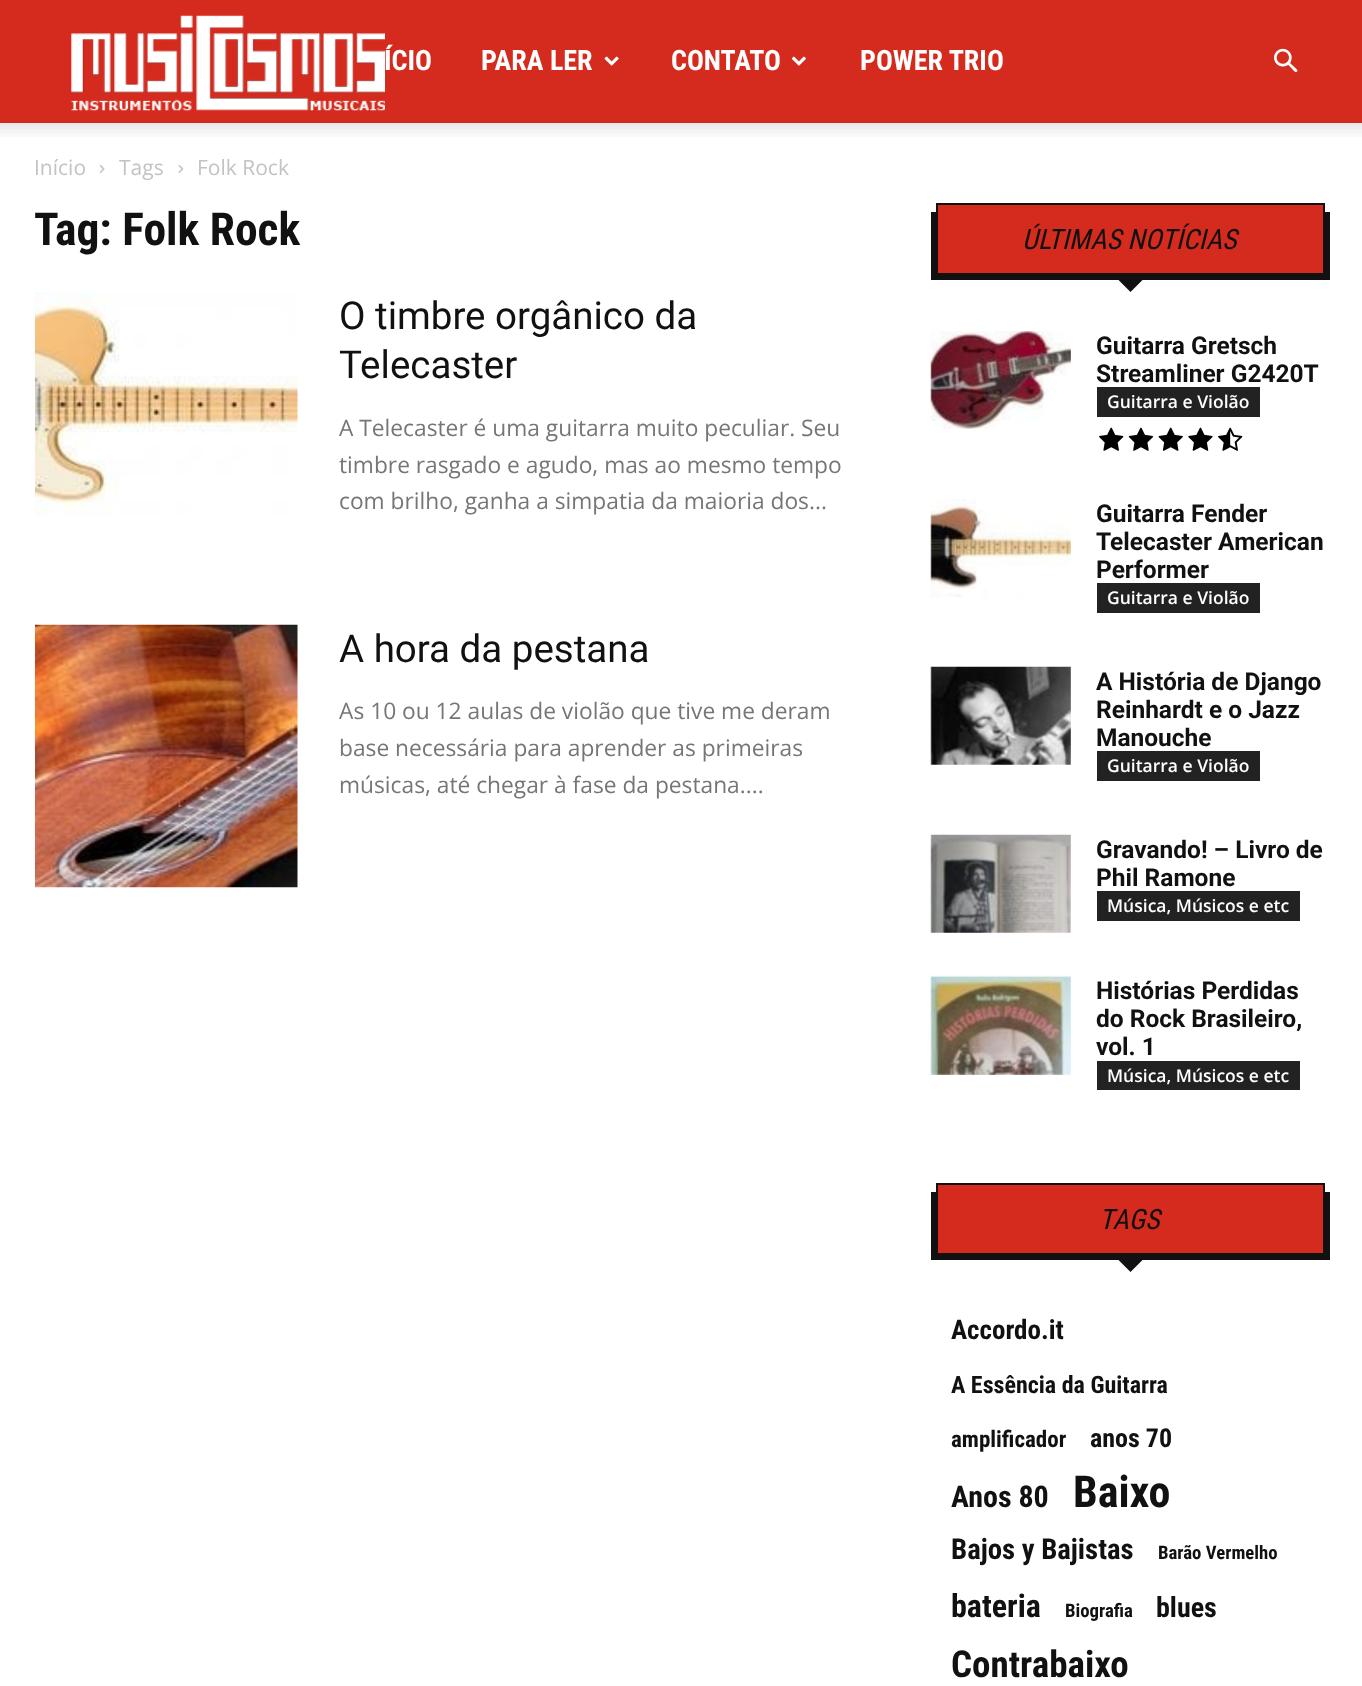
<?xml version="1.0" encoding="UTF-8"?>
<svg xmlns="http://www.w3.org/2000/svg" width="1362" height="1686">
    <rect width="100%" height="100%" fill="#FFFFFF"/>
    <rect x="0" y="0" width="1362" height="123" fill="#D52B1E"/>
    <image x="71" y="15" width="314" height="96" href="img_01.png"/>
    <text x="384" y="70" font-family="Roboto Condensed" font-size="28" font-weight="700" fill="#FFFFFF">ÍCIO</text>
    <text x="481" y="70" font-family="Roboto Condensed" font-size="28" font-weight="700" fill="#FFFFFF">PARA LER</text>
    <image x="604" y="56" width="15" height="10" href="img_02.png"/>
    <text x="671" y="70" font-family="Roboto Condensed" font-size="28" font-weight="700" fill="#FFFFFF">CONTATO</text>
    <image x="791" y="56" width="15" height="10" href="img_03.png"/>
    <text x="860" y="70" font-family="Roboto Condensed" font-size="28" font-weight="700" fill="#FFFFFF">POWER TRIO</text>
    <image x="1274" y="48" width="24" height="25" href="img_04.png"/>
    <image x="0" y="122" width="1362" height="15" href="img_05.png"/>
    <text x="34" y="175" font-family="Open Sans" font-size="21" fill="#C3C3C3">Início</text>
    <image x="99" y="165" width="6" height="8" href="img_06.png"/>
    <text x="119" y="175" font-family="Open Sans" font-size="21" fill="#C3C3C3">Tags</text>
    <image x="178" y="165" width="6" height="8" href="img_07.png"/>
    <text x="197" y="175" font-family="Open Sans" font-size="21" fill="#C3C3C3">Folk Rock</text>
    <text x="34" y="245" font-family="Roboto Condensed" font-size="45.5" font-weight="700" fill="#111111">Tag: Folk Rock</text>
    <image x="35" y="292" width="263" height="224" href="img_08.png"/>
    <text font-family="Roboto" font-size="38.5" fill="#111111">
        <tspan x="339" y="329">O timbre orgânico da</tspan>
        <tspan x="339" y="378">Telecaster</tspan>
    </text>
    <text font-family="Open Sans" font-size="22.75" fill="#767676">
        <tspan x="339" y="436">A Telecaster é uma guitarra muito peculiar. Seu</tspan>
        <tspan x="339" y="473">timbre rasgado e agudo, mas ao mesmo tempo</tspan>
        <tspan x="339" y="509">com brilho, ganha a simpatia da maioria dos...</tspan>
    </text>
    <image x="35" y="624" width="263" height="264" href="img_09.png"/>
    <text x="339" y="662" font-family="Roboto" font-size="38.5" fill="#111111">A hora da pestana</text>
    <text font-family="Open Sans" font-size="22.75" fill="#767676">
        <tspan x="339" y="719">As 10 ou 12 aulas de violão que tive me deram</tspan>
        <tspan x="339" y="756">base necessária para aprender as primeiras</tspan>
        <tspan x="339" y="793">músicas, até chegar à fase da pestana....</tspan>
    </text>
    <rect x="931" y="212" width="399" height="68" fill="#111111"/>
    <rect x="937" y="204" width="387" height="70" fill="#D52B1E" stroke="#111111" stroke-width="2"/>
    <text x="1022" y="249" font-family="Roboto Condensed" font-size="28" font-style="italic" fill="#111111">ÚLTIMAS NOTÍCIAS</text>
    <path d="M 1116.5 278 H 1144.5 L 1130.5 292 Z" fill="#111111"/>
    <image x="930" y="331" width="141" height="98" href="img_10.png"/>
    <text font-family="Roboto" font-size="24.5" font-weight="700" fill="#111111">
        <tspan x="1096" y="354">Guitarra Gretsch</tspan>
        <tspan x="1096" y="382">Streamliner G2420T</tspan>
    </text>
    <rect x="1097" y="387" width="163" height="30" fill="#222222"/>
    <text x="1107" y="408" font-family="Open Sans" font-size="17.5" font-weight="600" fill="#FFFFFF">Guitarra e Violão</text>
    <image x="1099" y="427" width="25" height="24" href="img_11.png"/>
    <image x="1128" y="427" width="26" height="24" href="img_12.png"/>
    <image x="1158" y="427" width="25" height="24" href="img_13.png"/>
    <image x="1188" y="427" width="25" height="24" href="img_14.png"/>
    <image x="1218" y="427" width="25" height="24" href="img_15.png"/>
    <image x="930" y="499" width="141" height="98" href="img_16.png"/>
    <text font-family="Roboto" font-size="24.5" font-weight="700" fill="#111111">
        <tspan x="1096" y="522">Guitarra Fender</tspan>
        <tspan x="1096" y="550">Telecaster American</tspan>
        <tspan x="1096" y="578">Performer</tspan>
    </text>
    <rect x="1097" y="583" width="163" height="30" fill="#222222"/>
    <text x="1107" y="604" font-family="Open Sans" font-size="17.5" font-weight="600" fill="#FFFFFF">Guitarra e Violão</text>
    <image x="930" y="666" width="141" height="99" href="img_17.png"/>
    <text font-family="Roboto" font-size="24.5" font-weight="700" fill="#111111">
        <tspan x="1096" y="690">A História de Django</tspan>
        <tspan x="1096" y="718">Reinhardt e o Jazz</tspan>
        <tspan x="1096" y="746">Manouche</tspan>
    </text>
    <rect x="1097" y="751" width="163" height="30" fill="#222222"/>
    <text x="1107" y="772" font-family="Open Sans" font-size="17.5" font-weight="600" fill="#FFFFFF">Guitarra e Violão</text>
    <image x="930" y="834" width="141" height="99" href="img_18.png"/>
    <text font-family="Roboto" font-size="24.5" font-weight="700" fill="#111111">
        <tspan x="1096" y="858">Gravando! – Livro de</tspan>
        <tspan x="1096" y="886">Phil Ramone</tspan>
    </text>
    <rect x="1097" y="891" width="203" height="30" fill="#222222"/>
    <text x="1107" y="912" font-family="Open Sans" font-size="17.5" font-weight="600" fill="#FFFFFF">Música, Músicos e etc</text>
    <image x="930" y="975" width="141" height="100" href="img_19.png"/>
    <text font-family="Roboto" font-size="24.5" font-weight="700" fill="#111111">
        <tspan x="1096" y="999">Histórias Perdidas</tspan>
        <tspan x="1096" y="1027">do Rock Brasileiro,</tspan>
        <tspan x="1096" y="1055">vol. 1</tspan>
    </text>
    <rect x="1097" y="1061" width="203" height="29" fill="#222222"/>
    <text x="1107" y="1082" font-family="Open Sans" font-size="17.5" font-weight="600" fill="#FFFFFF">Música, Músicos e etc</text>
    <rect x="931" y="1192" width="399" height="68" fill="#111111"/>
    <rect x="937" y="1184" width="387" height="70" fill="#D52B1E" stroke="#111111" stroke-width="2"/>
    <text x="1099" y="1229" font-family="Roboto Condensed" font-size="28" font-style="italic" fill="#111111">TAGS</text>
    <path d="M 1116.5 1258 H 1144.5 L 1130.5 1272 Z" fill="#111111"/>
    <text x="951" y="1339" font-family="Roboto Condensed" font-size="27" font-weight="700" fill="#111111">Accordo.it</text>
    <text x="951" y="1393" font-family="Roboto Condensed" font-size="24" font-weight="700" fill="#111111">A Essência da Guitarra</text>
    <text x="951" y="1447" font-family="Roboto Condensed" font-size="23" font-weight="700" fill="#111111">amplificador</text>
    <text x="1090" y="1447" font-family="Roboto Condensed" font-size="26" font-weight="700" fill="#111111">anos 70</text>
    <text x="951" y="1507" font-family="Roboto Condensed" font-size="30" font-weight="700" fill="#111111">Anos 80</text>
    <text x="1073" y="1507" font-family="Roboto Condensed" font-size="44" font-weight="700" fill="#111111">Baixo</text>
    <text x="951" y="1559" font-family="Roboto Condensed" font-size="28.75" font-weight="700" fill="#111111">Bajos y Bajistas</text>
    <text x="1158" y="1559" font-family="Roboto Condensed" font-size="18.75" font-weight="700" fill="#111111">Barão Vermelho</text>
    <text x="951" y="1617" font-family="Roboto Condensed" font-size="32" font-weight="700" fill="#111111">bateria</text>
    <text x="1065" y="1617" font-family="Roboto Condensed" font-size="18.75" font-weight="700" fill="#111111">Biografia</text>
    <text x="1156" y="1617" font-family="Roboto Condensed" font-size="28" font-weight="700" fill="#111111">blues</text>
    <text x="951" y="1677" font-family="Roboto Condensed" font-size="37" font-weight="700" fill="#111111">Contrabaixo</text>
</svg>
